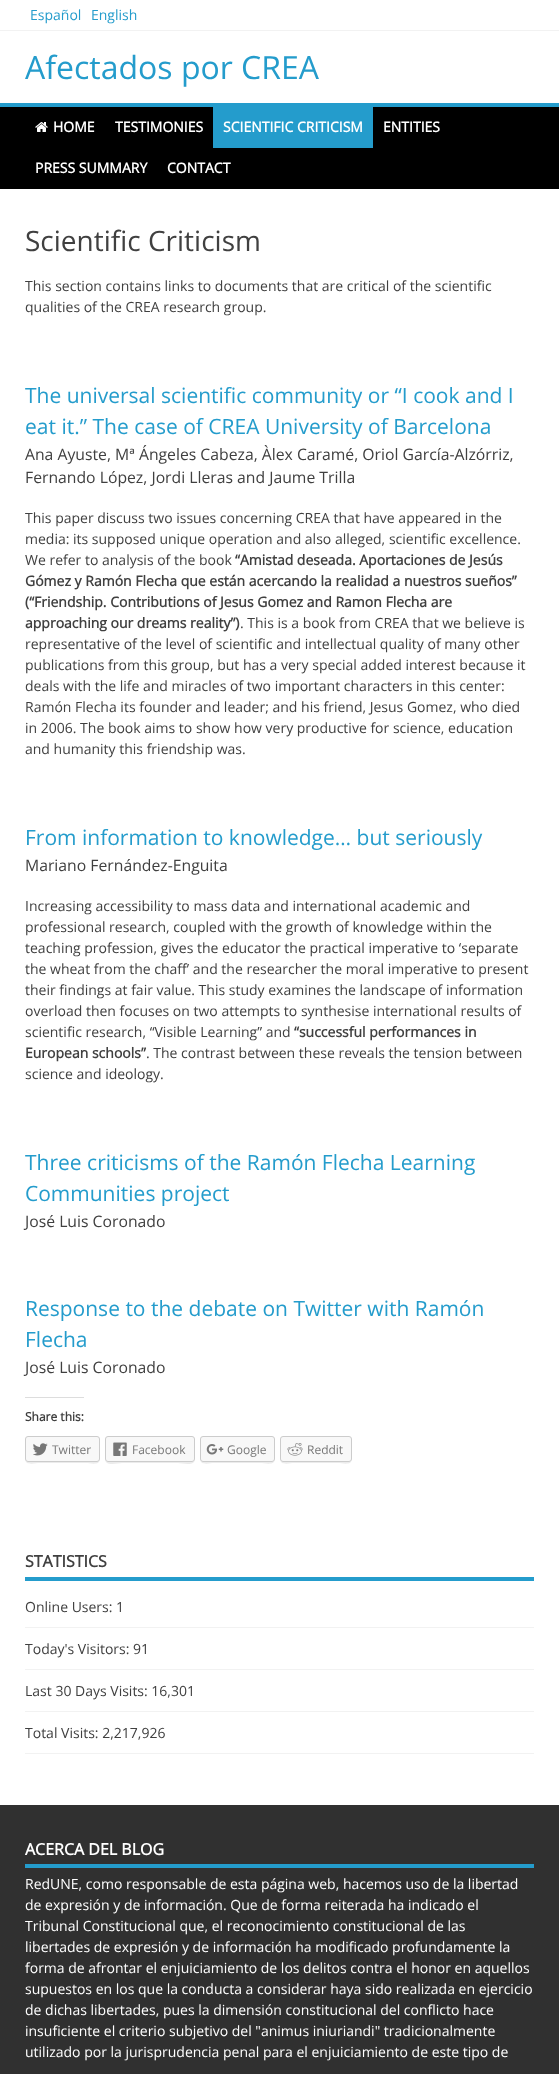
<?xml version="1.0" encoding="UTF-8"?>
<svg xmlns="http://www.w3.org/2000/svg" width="559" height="2074">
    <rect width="100%" height="100%" fill="#FFFFFF"/>
    <rect x="0" y="30" width="559" height="1" fill="#F2F2F2"/>
    <text x="30" y="20" font-family="Open Sans" font-size="14" fill="#249CCC">Español</text>
    <text x="91" y="20" font-family="Open Sans" font-size="14" fill="#249CCC">English</text>
    <text x="25" y="79" font-family="Open Sans" font-size="32" fill="#249CCC">Afectados por CREA</text>
    <rect x="0" y="107" width="559" height="82" fill="#000000"/>
    <rect x="0" y="103" width="559" height="4" fill="#249CCC"/>
    <image x="35" y="122" width="13" height="10" href="img_01.png"/>
    <text x="53" y="132" font-family="Open Sans" font-size="14" font-weight="700" fill="#FFFFFF">HOME</text>
    <text x="115" y="132" font-family="Open Sans" font-size="14" font-weight="700" fill="#FFFFFF">TESTIMONIES</text>
    <rect x="213" y="107" width="160" height="41" fill="#249CCC"/>
    <text x="223" y="132" font-family="Open Sans" font-size="14" font-weight="700" fill="#FFFFFF">SCIENTIFIC CRITICISM</text>
    <text x="383" y="132" font-family="Open Sans" font-size="14" font-weight="700" fill="#FFFFFF">ENTITIES</text>
    <text x="35" y="173" font-family="Open Sans" font-size="14" font-weight="700" fill="#FFFFFF">PRESS SUMMARY</text>
    <text x="167" y="173" font-family="Open Sans" font-size="14" font-weight="700" fill="#FFFFFF">CONTACT</text>
    <text x="25" y="251" font-family="Open Sans" font-size="28" fill="#404040">Scientific Criticism</text>
    <text font-family="Open Sans" font-size="14" fill="#404040">
        <tspan x="25" y="291">This section contains links to documents that are critical of the scientific</tspan>
        <tspan x="25" y="312">qualities of the CREA research group.</tspan>
    </text>
    <text font-family="Open Sans" font-size="21" fill="#249CCC">
        <tspan x="25" y="403">The universal scientific community or “I cook and I</tspan>
        <tspan x="25" y="434">eat it.” The case of CREA University of Barcelona</tspan>
    </text>
    <text font-family="Open Sans" font-size="15.75" fill="#404040">
        <tspan x="25" y="460">Ana Ayuste, Mª Ángeles Cabeza, Àlex Caramé, Oriol García-Alzórriz,</tspan>
        <tspan x="25" y="483">Fernando López, Jordi Lleras and Jaume Trilla</tspan>
    </text>
    <text font-family="Open Sans" font-size="14" fill="#404040">
        <tspan x="25" y="523">This paper discuss two issues concerning CREA that have appeared in the</tspan>
        <tspan x="25" y="544">media: its supposed unique operation and also alleged, scientific excellence.</tspan>
        <tspan x="25" y="565">We refer to analysis of the book</tspan>
    </text>
    <text x="235" y="565" font-family="Open Sans" font-size="14" font-weight="700" fill="#404040">“Amistad deseada. Aportaciones de Jesús</text>
    <text font-family="Open Sans" font-size="14" font-weight="700" fill="#404040">
        <tspan x="25" y="586">Gómez y Ramón Flecha que están acercando la realidad a nuestros sueños”</tspan>
        <tspan x="25" y="607">(“Friendship. Contributions of Jesus Gomez and Ramon Flecha are</tspan>
        <tspan x="25" y="628">approaching our dreams reality”)</tspan>
    </text>
    <text x="240" y="628" font-family="Open Sans" font-size="14" fill="#404040">. This is a book from CREA that we believe is</text>
    <text font-family="Open Sans" font-size="14" fill="#404040">
        <tspan x="25" y="649">representative of the level of scientific and intellectual quality of many other</tspan>
        <tspan x="25" y="670">publications from this group, but has a very special added interest because it</tspan>
        <tspan x="25" y="691">deals with the life and miracles of two important characters in this center:</tspan>
        <tspan x="25" y="712">Ramón Flecha its founder and leader; and his friend, Jesus Gomez, who died</tspan>
        <tspan x="25" y="733">in 2006. The book aims to show how very productive for science, education</tspan>
        <tspan x="25" y="754">and humanity this friendship was.</tspan>
    </text>
    <text x="25" y="845" font-family="Open Sans" font-size="21" fill="#249CCC">From information to knowledge… but seriously</text>
    <text x="25" y="871" font-family="Open Sans" font-size="15.75" fill="#404040">Mariano Fernández-Enguita</text>
    <text font-family="Open Sans" font-size="14" fill="#404040">
        <tspan x="25" y="911">Increasing accessibility to mass data and international academic and</tspan>
        <tspan x="25" y="932">professional research, coupled with the growth of knowledge within the</tspan>
        <tspan x="25" y="953">teaching profession, gives the educator the practical imperative to ‘separate</tspan>
        <tspan x="25" y="974">the wheat from the chaff’ and the researcher the moral imperative to present</tspan>
        <tspan x="25" y="995">their findings at fair value. This study examines the landscape of information</tspan>
        <tspan x="25" y="1016">overload then focuses on two attempts to synthesise international results of</tspan>
        <tspan x="25" y="1037">scientific research, “Visible Learning” and</tspan>
    </text>
    <text x="294" y="1037" font-family="Open Sans" font-size="14" font-weight="700" fill="#404040">“successful performances in</text>
    <text x="25" y="1058" font-family="Open Sans" font-size="14" font-weight="700" fill="#404040">European schools”</text>
    <text x="146" y="1058" font-family="Open Sans" font-size="14" fill="#404040">. The contrast between these reveals the tension between</text>
    <text x="25" y="1079" font-family="Open Sans" font-size="14" fill="#404040">science and ideology.</text>
    <text font-family="Open Sans" font-size="21" fill="#249CCC">
        <tspan x="25" y="1170">Three criticisms of the Ramón Flecha Learning</tspan>
        <tspan x="25" y="1201">Communities project</tspan>
    </text>
    <text x="25" y="1227" font-family="Open Sans" font-size="15.75" fill="#404040">José Luis Coronado</text>
    <text font-family="Open Sans" font-size="21" fill="#249CCC">
        <tspan x="25" y="1316">Response to the debate on Twitter with Ramón</tspan>
        <tspan x="25" y="1347">Flecha</tspan>
    </text>
    <text x="25" y="1373" font-family="Open Sans" font-size="15.75" fill="#404040">José Luis Coronado</text>
    <rect x="25" y="1397" width="59" height="1" fill="#DDDDDD"/>
    <text x="25" y="1421" font-family="Open Sans" font-size="12" font-weight="700" fill="#404040">Share this:</text>
    <path d="M 25 1459 C 25 1466 35 1463 40 1463 H 86 C 90 1463 100 1466 100 1459 C 100 1461 99 1462 97 1462 H 28 C 26 1462 25 1461 25 1459 Z" fill="#EBEBEB"/>
    <rect x="25.5" y="1436.5" width="74" height="25" rx="2.5" fill="#F8F8F8" stroke="#CCCCCC"/>
    <image x="33" y="1443" width="15" height="13" href="img_02.png"/>
    <text x="52" y="1454" font-family="Open Sans" font-size="12" fill="#777777">Twitter</text>
    <path d="M 105 1459 C 105 1467 118 1463 122 1463 H 178 C 182 1463 195 1467 195 1459 C 195 1461 194 1462 192 1462 H 108 C 106 1462 105 1461 105 1459 Z" fill="#EBEBEB"/>
    <rect x="105.5" y="1436.5" width="89" height="25" rx="2.5" fill="#F8F8F8" stroke="#CCCCCC"/>
    <image x="113" y="1442" width="14" height="14" href="img_03.png"/>
    <text x="132" y="1454" font-family="Open Sans" font-size="12" fill="#777777">Facebook</text>
    <path d="M 200 1459 C 200 1466 210 1463 214 1463 H 260 C 265 1463 275 1466 275 1459 C 275 1461 274 1462 272 1462 H 203 C 201 1462 200 1461 200 1459 Z" fill="#EBEBEB"/>
    <rect x="200.5" y="1436.5" width="74" height="25" rx="2.5" fill="#F8F8F8" stroke="#CCCCCC"/>
    <image x="206" y="1444" width="18" height="11" href="img_04.png"/>
    <text x="227" y="1454" font-family="Open Sans" font-size="12" fill="#777777">Google</text>
    <path d="M 280 1459 C 280 1466 290 1463 294 1463 H 338 C 342 1463 352 1466 352 1459 C 352 1461 351 1462 349 1462 H 283 C 281 1462 280 1461 280 1459 Z" fill="#EBEBEB"/>
    <rect x="280.5" y="1436.5" width="71" height="25" rx="2.5" fill="#F8F8F8" stroke="#CCCCCC"/>
    <image x="287" y="1443" width="16" height="13" href="img_05.png"/>
    <text x="307" y="1454" font-family="Open Sans" font-size="12" fill="#777777">Reddit</text>
    <rect x="25" y="1577" width="509" height="4" fill="#249CCC"/>
    <text x="25" y="1567" font-family="Open Sans" font-size="16" font-weight="700" fill="#404040">STATISTICS</text>
    <rect x="25" y="1627" width="509" height="1" fill="#F2F2F2"/>
    <text x="25" y="1612" font-family="Open Sans" font-size="14" fill="#404040">Online Users: 1</text>
    <rect x="25" y="1669" width="509" height="1" fill="#F2F2F2"/>
    <text x="25" y="1654" font-family="Open Sans" font-size="14" fill="#404040">Today's Visitors: 91</text>
    <rect x="25" y="1711" width="509" height="1" fill="#F2F2F2"/>
    <text x="25" y="1696" font-family="Open Sans" font-size="14" fill="#404040">Last 30 Days Visits: 16,301</text>
    <rect x="25" y="1753" width="509" height="1" fill="#F2F2F2"/>
    <text x="25" y="1738" font-family="Open Sans" font-size="14" fill="#404040">Total Visits: 2,217,926</text>
    <rect x="0" y="1805" width="559" height="269" fill="#303030"/>
    <rect x="25" y="1864" width="509" height="4" fill="#249CCC"/>
    <text x="25" y="1855" font-family="Open Sans" font-size="16" font-weight="700" fill="#FFFFFF">ACERCA DEL BLOG</text>
    <text font-family="Open Sans" font-size="14" fill="#FFFFFF">
        <tspan x="25" y="1889">RedUNE, como responsable de esta página web, hacemos uso de la libertad</tspan>
        <tspan x="25" y="1910">de expresión y de información. Que de forma reiterada ha indicado el</tspan>
        <tspan x="25" y="1931">Tribunal Constitucional que, el reconocimiento constitucional de las</tspan>
        <tspan x="25" y="1952">libertades de expresión y de información ha modificado profundamente la</tspan>
        <tspan x="25" y="1973">forma de afrontar el enjuiciamiento de los delitos contra el honor en aquellos</tspan>
        <tspan x="25" y="1994">supuestos en los que la conducta a considerar haya sido realizada en ejercicio</tspan>
        <tspan x="25" y="2015">de dichas libertades, pues la dimensión constitucional del conflicto hace</tspan>
        <tspan x="25" y="2036">insuficiente el criterio subjetivo del "animus iniuriandi" tradicionalmente</tspan>
        <tspan x="25" y="2057">utilizado por la jurisprudencia penal para el enjuiciamiento de este tipo de</tspan>
    </text>
</svg>
